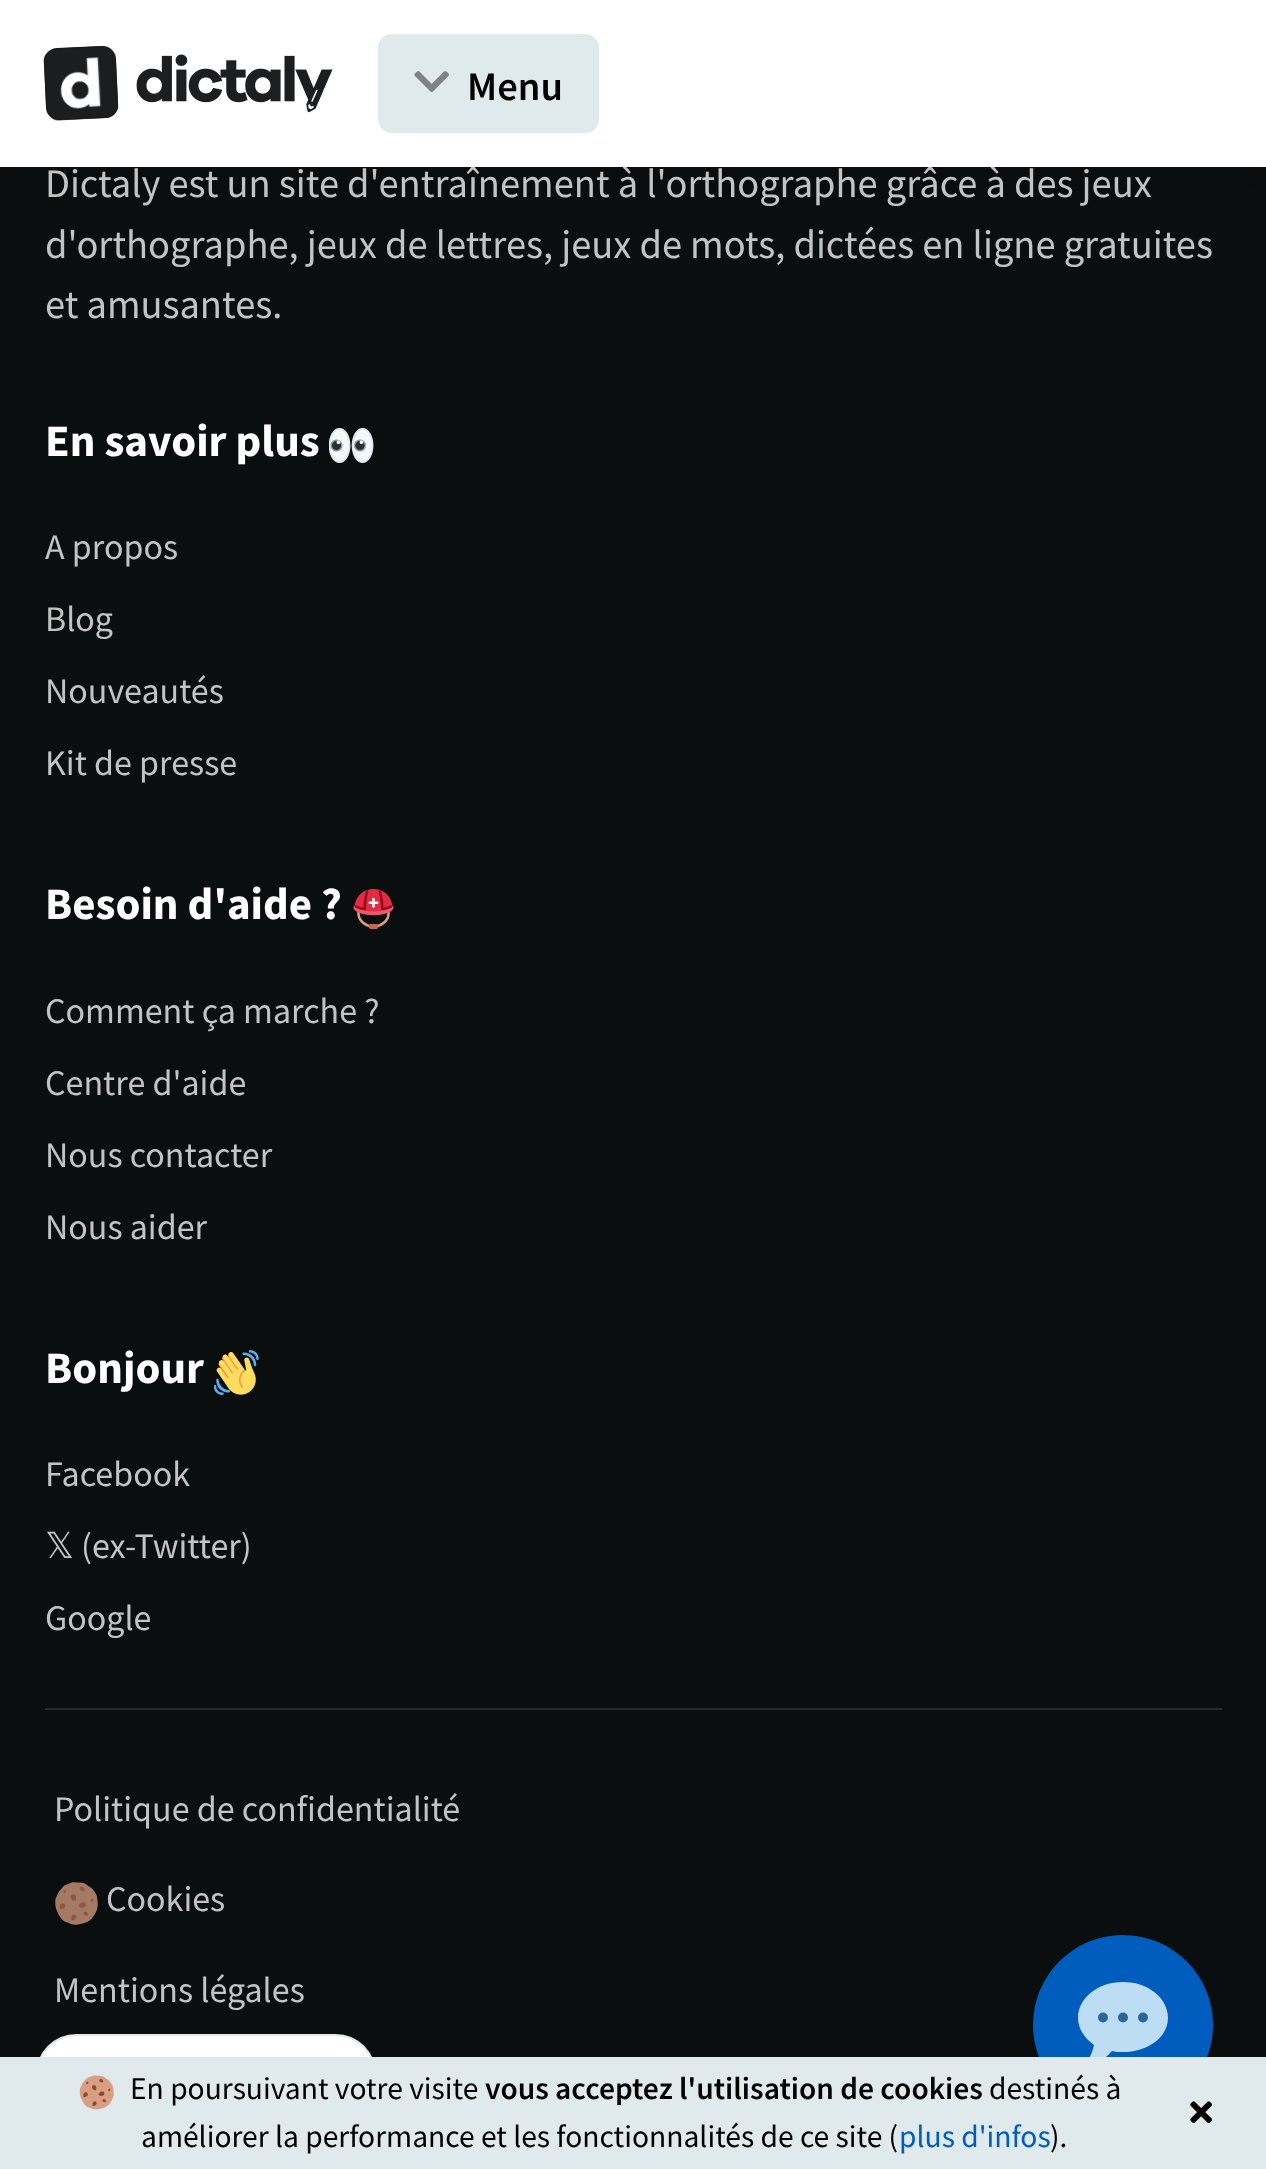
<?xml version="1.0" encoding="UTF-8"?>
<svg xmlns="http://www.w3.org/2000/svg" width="1266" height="2169">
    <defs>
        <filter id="blur1" x="-50%" y="-200%" width="200%" height="500%"><feGaussianBlur stdDeviation="28"/></filter>
    </defs>
    <rect width="100%" height="100%" fill="#0B0E0E"/>
    <rect x="11" y="56" width="1245" height="144" fill="#000000" fill-opacity="0.1" filter="url(#blur1)"/>
    <text x="45" y="197" font-family="Source Sans Pro" font-size="40.5" fill="#C2C3C3">Dictaly est un site d'entraînement à l'orthographe grâce à des jeux</text>
    <rect x="0" y="0" width="1266" height="167" fill="#FFFFFF"/>
    <path d="M 57 48 L 102 46 C 109 46 115 51 116 59 L 118 104 C 119 111 113 118 105 118 L 60 120 C 53 121 47 115 46 108 L 44 63 C 43 55 49 49 57 48 Z" fill="#0B0E0E"/>
    <image x="43" y="45" width="76" height="76" href="img_01.png"/>
    <image x="136" y="54" width="197" height="59" href="img_02.png"/>
    <rect x="378" y="34" width="221" height="99" rx="14" fill="#E0EAEC"/>
    <image x="414" y="71" width="35" height="21" href="img_03.png"/>
    <text x="467" y="100" font-family="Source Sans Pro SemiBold" font-size="40.5" font-weight="600" fill="#000000">Menu</text>
    <text font-family="Source Sans Pro" font-size="40.5" fill="#C2C3C3">
        <tspan x="45" y="258">d'orthographe, jeux de lettres, jeux de mots, dictées en ligne gratuites</tspan>
        <tspan x="45" y="318">et amusantes.</tspan>
    </text>
    <text x="45" y="456" font-family="Source Sans Pro" font-size="45" font-weight="700" fill="#FFFFFF">En savoir plus</text>
    <image x="329" y="428" width="45" height="35" href="img_04.png"/>
    <text x="45" y="559" font-family="Source Sans Pro" font-size="36" fill="#C2C3C3">A propos</text>
    <text x="45" y="631" font-family="Source Sans Pro" font-size="36" fill="#C2C3C3">Blog</text>
    <text x="45" y="703" font-family="Source Sans Pro" font-size="36" fill="#C2C3C3">Nouveautés</text>
    <text x="45" y="775" font-family="Source Sans Pro" font-size="36" fill="#C2C3C3">Kit de presse</text>
    <text x="45" y="919" font-family="Source Sans Pro" font-size="45" font-weight="700" fill="#FFFFFF">Besoin d'aide ?</text>
    <image x="353" y="889" width="41" height="40" href="img_05.png"/>
    <text x="45" y="1023" font-family="Source Sans Pro" font-size="36" fill="#C2C3C3">Comment ça marche ?</text>
    <text x="45" y="1095" font-family="Source Sans Pro" font-size="36" fill="#C2C3C3">Centre d'aide</text>
    <text x="45" y="1167" font-family="Source Sans Pro" font-size="36" fill="#C2C3C3">Nous contacter</text>
    <text x="45" y="1239" font-family="Source Sans Pro" font-size="36" fill="#C2C3C3">Nous aider</text>
    <text x="45" y="1383" font-family="Source Sans Pro" font-size="45" font-weight="700" fill="#FFFFFF">Bonjour</text>
    <image x="214" y="1350" width="45" height="45" href="img_06.png"/>
    <text x="45" y="1486" font-family="Source Sans Pro" font-size="36" fill="#C2C3C3">Facebook</text>
    <text x="45" y="1558" font-family="DejaVu Sans" font-size="36" fill="#C2C3C3">𝕏</text>
    <text x="81" y="1558" font-family="Source Sans Pro" font-size="36" fill="#C2C3C3">(ex-Twitter)</text>
    <text x="45" y="1630" font-family="Source Sans Pro" font-size="36" fill="#C2C3C3">Google</text>
    <rect x="45" y="1708" width="1177" height="2" fill="#2A2C2C"/>
    <text x="54" y="1821" font-family="Source Sans Pro" font-size="36" fill="#C2C3C3">Politique de confidentialité</text>
    <image x="55" y="1882" width="43" height="43" href="img_07.png"/>
    <text x="106" y="1911" font-family="Source Sans Pro" font-size="36" fill="#C2C3C3">Cookies</text>
    <text x="54" y="2002" font-family="Source Sans Pro" font-size="36" fill="#C2C3C3">Mentions légales</text>
    <rect x="37" y="2035" width="338" height="79" rx="39.5" fill="#FFFFFF" stroke="#E0EAEC" stroke-width="2"/>
    <circle cx="1123" cy="2025" r="90" fill="#005CBD"/>
    <path d="M 1123 1982 C 1098 1982 1078 1998 1078 2018 C 1078 2028 1084 2038 1094 2045 C 1093 2050 1090 2059 1083 2068 C 1097 2065 1106 2058 1112 2051 C 1115 2052 1119 2052 1123 2052 C 1148 2052 1168 2037 1168 2018 C 1168 1998 1148 1982 1123 1982 Z" fill="#BDDDF4"/>
    <rect x="0" y="2057" width="1266" height="112" fill="#E0EAEC"/>
    <image x="79" y="2075" width="35" height="35" href="img_08.png"/>
    <text x="130" y="2099" font-family="Source Sans Pro" font-size="31.5" fill="#000000">En poursuivant votre visite</text>
    <text x="485" y="2099" font-family="Source Sans Pro SemiBold" font-size="31.5" font-weight="600" fill="#000000">vous acceptez l'utilisation de cookies</text>
    <text x="989" y="2099" font-family="Source Sans Pro" font-size="31.5" fill="#000000">destinés à</text>
    <text x="141" y="2147" font-family="Source Sans Pro" font-size="31.5" fill="#000000">améliorer la performance et les fonctionnalités de ce site (</text>
    <text x="899" y="2147" font-family="Source Sans Pro" font-size="31.5" fill="#005CBD">plus d'infos</text>
    <text x="1050" y="2147" font-family="Source Sans Pro" font-size="31.5" fill="#000000">).</text>
    <image x="1190" y="2101" width="22" height="22" href="img_09.png"/>
    <circle cx="1123" cy="2017.5" r="5" fill="#2A6797"/>
    <circle cx="1143" cy="2017.5" r="5" fill="#2A6797"/>
    <circle cx="1103" cy="2017.5" r="5" fill="#2A6797"/>
</svg>
